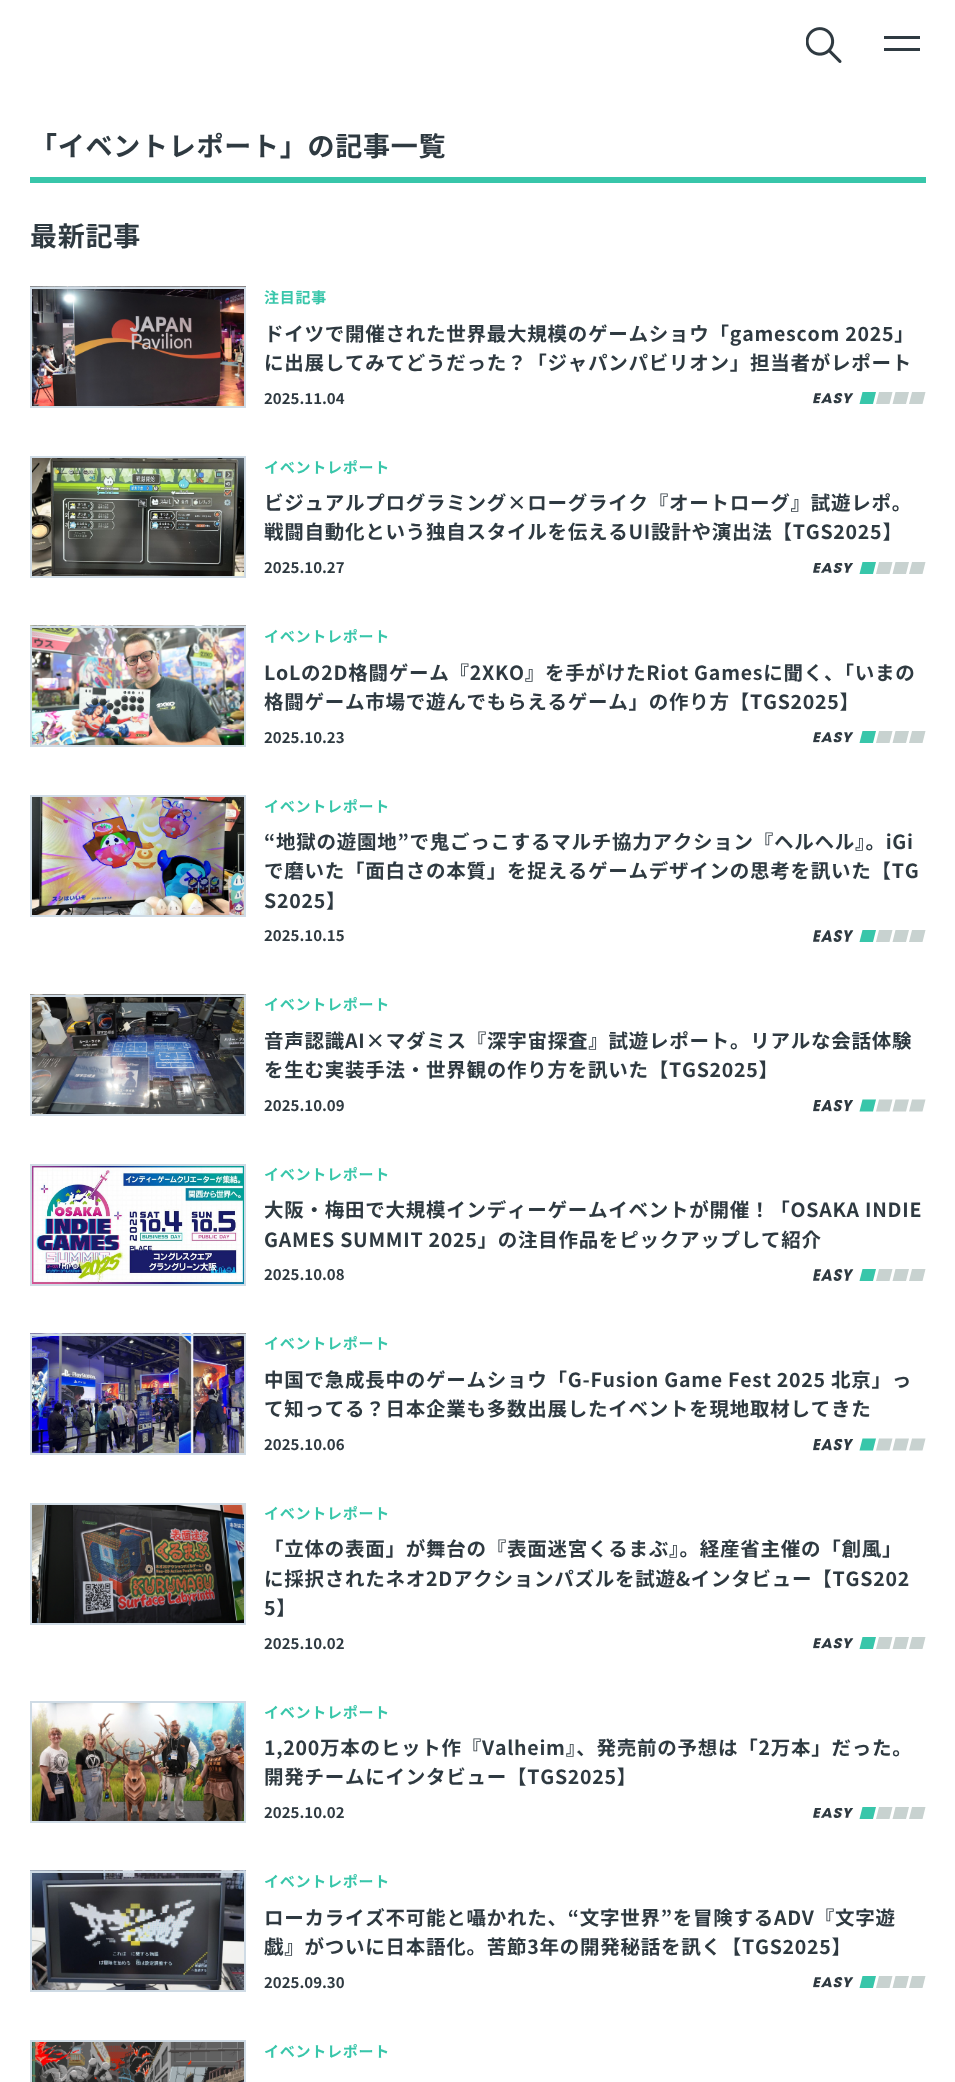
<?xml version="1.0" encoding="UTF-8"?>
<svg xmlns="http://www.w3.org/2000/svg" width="955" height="2082">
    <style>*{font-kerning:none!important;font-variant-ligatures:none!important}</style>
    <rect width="100%" height="100%" fill="#FFFFFF"/>
    <rect x="884" y="36" width="36" height="3" fill="#2F3A41"/>
    <rect x="884" y="48" width="36" height="3" fill="#2F3A41"/>
    <image x="806" y="27" width="36" height="36" href="img_01.png"/>
    <rect x="30" y="177" width="896" height="6" fill="#38C6AA"/>
    <text x="30" y="156" font-family="Noto Sans JP" font-size="27" font-weight="700" letter-spacing="0.75" fill="#2F3A41">「イベントレポート」の記事一覧</text>
    <text x="30" y="246" font-family="Noto Sans JP" font-size="27" font-weight="700" letter-spacing="0.75" fill="#2F3A41">最新記事</text>
    <image x="30" y="286" width="216" height="120" href="img_02.png"/>
    <rect x="31" y="288" width="214" height="119" fill="none" stroke="#CFDBE5" stroke-width="2"/>
    <text x="264" y="303" font-family="Noto Sans JP" font-size="15" font-weight="700" letter-spacing="0.75" fill="#38C6AA">注目記事</text>
    <text font-family="Noto Sans JP" font-size="19.5" font-weight="700" letter-spacing="0.75" fill="#2F3A41">
        <tspan x="264" y="341">ドイツで開催された世界最大規模のゲームショウ「gamescom 2025」</tspan>
        <tspan x="264" y="370">に出展してみてどうだった？「ジャパンパビリオン」担当者がレポート</tspan>
    </text>
    <text x="264" y="404" font-family="Noto Sans JP" font-size="15" font-weight="700" fill="#2F3A41">2025.11.04</text>
    <image x="813" y="393" width="41" height="11" href="img_03.png"/>
    <path d="M 862.5 392 H 876 L 873 404 H 859.5 Z" fill="#38C6AA"/>
    <path d="M 879 392 H 892.5 L 889.5 404 H 876 Z" fill="#C8D2D0"/>
    <path d="M 895.5 392 H 909 L 906 404 H 892.5 Z M 912 392 H 925.5 L 922.5 404 H 909 Z" fill="#C8D2D0"/>
    <image x="32" y="458" width="212" height="118" href="img_04.png"/>
    <rect x="31" y="457" width="214" height="120" fill="none" stroke="#CFDBE5" stroke-width="2"/>
    <text x="264" y="473" font-family="Noto Sans JP" font-size="15" font-weight="700" letter-spacing="0.75" fill="#38C6AA">イベントレポート</text>
    <text font-family="Noto Sans JP" font-size="19.5" font-weight="700" letter-spacing="0.75" fill="#2F3A41">
        <tspan x="264" y="510">ビジュアルプログラミング×ローグライク『オートローグ』試遊レポ。</tspan>
        <tspan x="264" y="539">戦闘自動化という独自スタイルを伝えるUI設計や演出法【TGS2025】</tspan>
    </text>
    <text x="264" y="573" font-family="Noto Sans JP" font-size="15" font-weight="700" fill="#2F3A41">2025.10.27</text>
    <image x="813" y="563" width="41" height="10" href="img_05.png"/>
    <path d="M 862.5 562 H 876 L 873 574 H 859.5 Z" fill="#38C6AA"/>
    <path d="M 879 562 H 892.5 L 889.5 574 H 876 Z" fill="#C8D2D0"/>
    <path d="M 895.5 562 H 909 L 906 574 H 892.5 Z M 912 562 H 925.5 L 922.5 574 H 909 Z" fill="#C8D2D0"/>
    <image x="30" y="625" width="216" height="120" href="img_06.png"/>
    <rect x="31" y="627" width="214" height="119" fill="none" stroke="#CFDBE5" stroke-width="2"/>
    <text x="264" y="642" font-family="Noto Sans JP" font-size="15" font-weight="700" letter-spacing="0.75" fill="#38C6AA">イベントレポート</text>
    <text font-family="Noto Sans JP" font-size="19.5" font-weight="700" letter-spacing="0.75" fill="#2F3A41">
        <tspan x="264" y="680">LoLの2D格闘ゲーム『2XKO』を手がけたRiot Gamesに聞く、「いまの</tspan>
        <tspan x="264" y="709">格闘ゲーム市場で遊んでもらえるゲーム」の作り方【TGS2025】</tspan>
    </text>
    <text x="264" y="743" font-family="Noto Sans JP" font-size="15" font-weight="700" fill="#2F3A41">2025.10.23</text>
    <image x="813" y="732" width="41" height="11" href="img_03.png"/>
    <path d="M 862.5 731 H 876 L 873 743 H 859.5 Z" fill="#38C6AA"/>
    <path d="M 879 731 H 892.5 L 889.5 743 H 876 Z" fill="#C8D2D0"/>
    <path d="M 895.5 731 H 909 L 906 743 H 892.5 Z M 912 731 H 925.5 L 922.5 743 H 909 Z" fill="#C8D2D0"/>
    <image x="32" y="797" width="212" height="118" href="img_07.png"/>
    <rect x="31" y="796" width="214" height="120" fill="none" stroke="#CFDBE5" stroke-width="2"/>
    <text x="264" y="812" font-family="Noto Sans JP" font-size="15" font-weight="700" letter-spacing="0.75" fill="#38C6AA">イベントレポート</text>
    <text font-family="Noto Sans JP" font-size="19.5" font-weight="700" letter-spacing="0.75" fill="#2F3A41">
        <tspan x="264" y="849">“地獄の遊園地”で鬼ごっこするマルチ協力アクション『ヘルヘル』。iGi</tspan>
        <tspan x="264" y="878">で磨いた「面白さの本質」を捉えるゲームデザインの思考を訊いた【TG</tspan>
        <tspan x="264" y="908">S2025】</tspan>
    </text>
    <text x="264" y="941" font-family="Noto Sans JP" font-size="15" font-weight="700" fill="#2F3A41">2025.10.15</text>
    <image x="813" y="930" width="41" height="12" href="img_08.png"/>
    <path d="M 862.5 930 H 876 L 873 942 H 859.5 Z" fill="#38C6AA"/>
    <path d="M 879 930 H 892.5 L 889.5 942 H 876 Z" fill="#C8D2D0"/>
    <path d="M 895.5 930 H 909 L 906 942 H 892.5 Z M 912 930 H 925.5 L 922.5 942 H 909 Z" fill="#C8D2D0"/>
    <image x="30" y="994" width="216" height="120" href="img_09.png"/>
    <rect x="31" y="996" width="214" height="119" fill="none" stroke="#CFDBE5" stroke-width="2"/>
    <text x="264" y="1010" font-family="Noto Sans JP" font-size="15" font-weight="700" letter-spacing="0.75" fill="#38C6AA">イベントレポート</text>
    <text font-family="Noto Sans JP" font-size="19.5" font-weight="700" letter-spacing="0.75" fill="#2F3A41">
        <tspan x="264" y="1048">音声認識AI×マダミス『深宇宙探査』試遊レポート。リアルな会話体験</tspan>
        <tspan x="264" y="1077">を生む実装手法・世界観の作り方を訊いた【TGS2025】</tspan>
    </text>
    <text x="264" y="1111" font-family="Noto Sans JP" font-size="15" font-weight="700" fill="#2F3A41">2025.10.09</text>
    <image x="813" y="1100" width="41" height="12" href="img_10.png"/>
    <path d="M 862.5 1099.5 H 876 L 873 1111.5 H 859.5 Z" fill="#38C6AA"/>
    <path d="M 879 1099.5 H 892.5 L 889.5 1111.5 H 876 Z" fill="#C8D2D0"/>
    <path d="M 895.5 1099.5 H 909 L 906 1111.5 H 892.5 Z M 912 1099.5 H 925.5 L 922.5 1111.5 H 909 Z" fill="#C8D2D0"/>
    <image x="32" y="1166" width="212" height="118" href="img_11.png"/>
    <rect x="31" y="1165" width="214" height="120" fill="none" stroke="#CFDBE5" stroke-width="2"/>
    <text x="264" y="1180" font-family="Noto Sans JP" font-size="15" font-weight="700" letter-spacing="0.75" fill="#38C6AA">イベントレポート</text>
    <text font-family="Noto Sans JP" font-size="19.5" font-weight="700" letter-spacing="0.75" fill="#2F3A41">
        <tspan x="264" y="1217">大阪・梅田で大規模インディーゲームイベントが開催！「OSAKA INDIE</tspan>
        <tspan x="264" y="1247">GAMES SUMMIT 2025」の注目作品をピックアップして紹介</tspan>
    </text>
    <text x="264" y="1280" font-family="Noto Sans JP" font-size="15" font-weight="700" fill="#2F3A41">2025.10.08</text>
    <image x="813" y="1269" width="41" height="12" href="img_12.png"/>
    <path d="M 862.5 1269 H 876 L 873 1281 H 859.5 Z" fill="#38C6AA"/>
    <path d="M 879 1269 H 892.5 L 889.5 1281 H 876 Z" fill="#C8D2D0"/>
    <path d="M 895.5 1269 H 909 L 906 1281 H 892.5 Z M 912 1269 H 925.5 L 922.5 1281 H 909 Z" fill="#C8D2D0"/>
    <image x="30" y="1333" width="216" height="120" href="img_13.png"/>
    <rect x="31" y="1335" width="214" height="119" fill="none" stroke="#CFDBE5" stroke-width="2"/>
    <text x="264" y="1349" font-family="Noto Sans JP" font-size="15" font-weight="700" letter-spacing="0.75" fill="#38C6AA">イベントレポート</text>
    <text font-family="Noto Sans JP" font-size="19.5" font-weight="700" letter-spacing="0.75" fill="#2F3A41">
        <tspan x="264" y="1387">中国で急成長中のゲームショウ「G-Fusion Game Fest 2025 北京」っ</tspan>
        <tspan x="264" y="1416">て知ってる？日本企業も多数出展したイベントを現地取材してきた</tspan>
    </text>
    <text x="264" y="1450" font-family="Noto Sans JP" font-size="15" font-weight="700" fill="#2F3A41">2025.10.06</text>
    <image x="813" y="1439" width="41" height="12" href="img_10.png"/>
    <path d="M 862.5 1438.5 H 876 L 873 1450.5 H 859.5 Z" fill="#38C6AA"/>
    <path d="M 879 1438.5 H 892.5 L 889.5 1450.5 H 876 Z" fill="#C8D2D0"/>
    <path d="M 895.5 1438.5 H 909 L 906 1450.5 H 892.5 Z M 912 1438.5 H 925.5 L 922.5 1450.5 H 909 Z" fill="#C8D2D0"/>
    <image x="32" y="1505" width="212" height="118" href="img_14.png"/>
    <rect x="31" y="1504" width="214" height="120" fill="none" stroke="#CFDBE5" stroke-width="2"/>
    <text x="264" y="1519" font-family="Noto Sans JP" font-size="15" font-weight="700" letter-spacing="0.75" fill="#38C6AA">イベントレポート</text>
    <text font-family="Noto Sans JP" font-size="19.5" font-weight="700" letter-spacing="0.75" fill="#2F3A41">
        <tspan x="264" y="1556">「立体の表面」が舞台の『表面迷宮くるまぶ』。経産省主催の「創風」</tspan>
        <tspan x="264" y="1586">に採択されたネオ2Dアクションパズルを試遊&amp;インタビュー【TGS202</tspan>
        <tspan x="264" y="1615">5】</tspan>
    </text>
    <text x="264" y="1649" font-family="Noto Sans JP" font-size="15" font-weight="700" fill="#2F3A41">2025.10.02</text>
    <image x="813" y="1638" width="41" height="11" href="img_03.png"/>
    <path d="M 862.5 1637 H 876 L 873 1649 H 859.5 Z" fill="#38C6AA"/>
    <path d="M 879 1637 H 892.5 L 889.5 1649 H 876 Z" fill="#C8D2D0"/>
    <path d="M 895.5 1637 H 909 L 906 1649 H 892.5 Z M 912 1637 H 925.5 L 922.5 1649 H 909 Z" fill="#C8D2D0"/>
    <image x="32" y="1703" width="212" height="118" href="img_15.png"/>
    <rect x="31" y="1702" width="214" height="120" fill="none" stroke="#CFDBE5" stroke-width="2"/>
    <text x="264" y="1718" font-family="Noto Sans JP" font-size="15" font-weight="700" letter-spacing="0.75" fill="#38C6AA">イベントレポート</text>
    <text font-family="Noto Sans JP" font-size="19.5" font-weight="700" letter-spacing="0.75" fill="#2F3A41">
        <tspan x="264" y="1755">1,200万本のヒット作『Valheim』、発売前の予想は「2万本」だった。</tspan>
        <tspan x="264" y="1784">開発チームにインタビュー【TGS2025】</tspan>
    </text>
    <text x="264" y="1818" font-family="Noto Sans JP" font-size="15" font-weight="700" fill="#2F3A41">2025.10.02</text>
    <image x="813" y="1808" width="41" height="10" href="img_05.png"/>
    <path d="M 862.5 1807 H 876 L 873 1819 H 859.5 Z" fill="#38C6AA"/>
    <path d="M 879 1807 H 892.5 L 889.5 1819 H 876 Z" fill="#C8D2D0"/>
    <path d="M 895.5 1807 H 909 L 906 1819 H 892.5 Z M 912 1807 H 925.5 L 922.5 1819 H 909 Z" fill="#C8D2D0"/>
    <image x="30" y="1870" width="216" height="120" href="img_16.png"/>
    <rect x="31" y="1872" width="214" height="119" fill="none" stroke="#CFDBE5" stroke-width="2"/>
    <text x="264" y="1887" font-family="Noto Sans JP" font-size="15" font-weight="700" letter-spacing="0.75" fill="#38C6AA">イベントレポート</text>
    <text font-family="Noto Sans JP" font-size="19.5" font-weight="700" letter-spacing="0.75" fill="#2F3A41">
        <tspan x="264" y="1925">ローカライズ不可能と囁かれた、“文字世界”を冒険するADV『文字遊</tspan>
        <tspan x="264" y="1954">戯』がついに日本語化。苦節3年の開発秘話を訊く【TGS2025】</tspan>
    </text>
    <text x="264" y="1988" font-family="Noto Sans JP" font-size="15" font-weight="700" fill="#2F3A41">2025.09.30</text>
    <image x="813" y="1977" width="41" height="11" href="img_03.png"/>
    <path d="M 862.5 1976 H 876 L 873 1988 H 859.5 Z" fill="#38C6AA"/>
    <path d="M 879 1976 H 892.5 L 889.5 1988 H 876 Z" fill="#C8D2D0"/>
    <path d="M 895.5 1976 H 909 L 906 1988 H 892.5 Z M 912 1976 H 925.5 L 922.5 1988 H 909 Z" fill="#C8D2D0"/>
    <image x="32" y="2042" width="212" height="40" href="img_17.png"/>
    <rect x="31" y="2041" width="214" height="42" fill="none" stroke="#CFDBE5" stroke-width="2"/>
    <text x="264" y="2057" font-family="Noto Sans JP" font-size="15" font-weight="700" letter-spacing="0.75" fill="#38C6AA">イベントレポート</text>
</svg>
